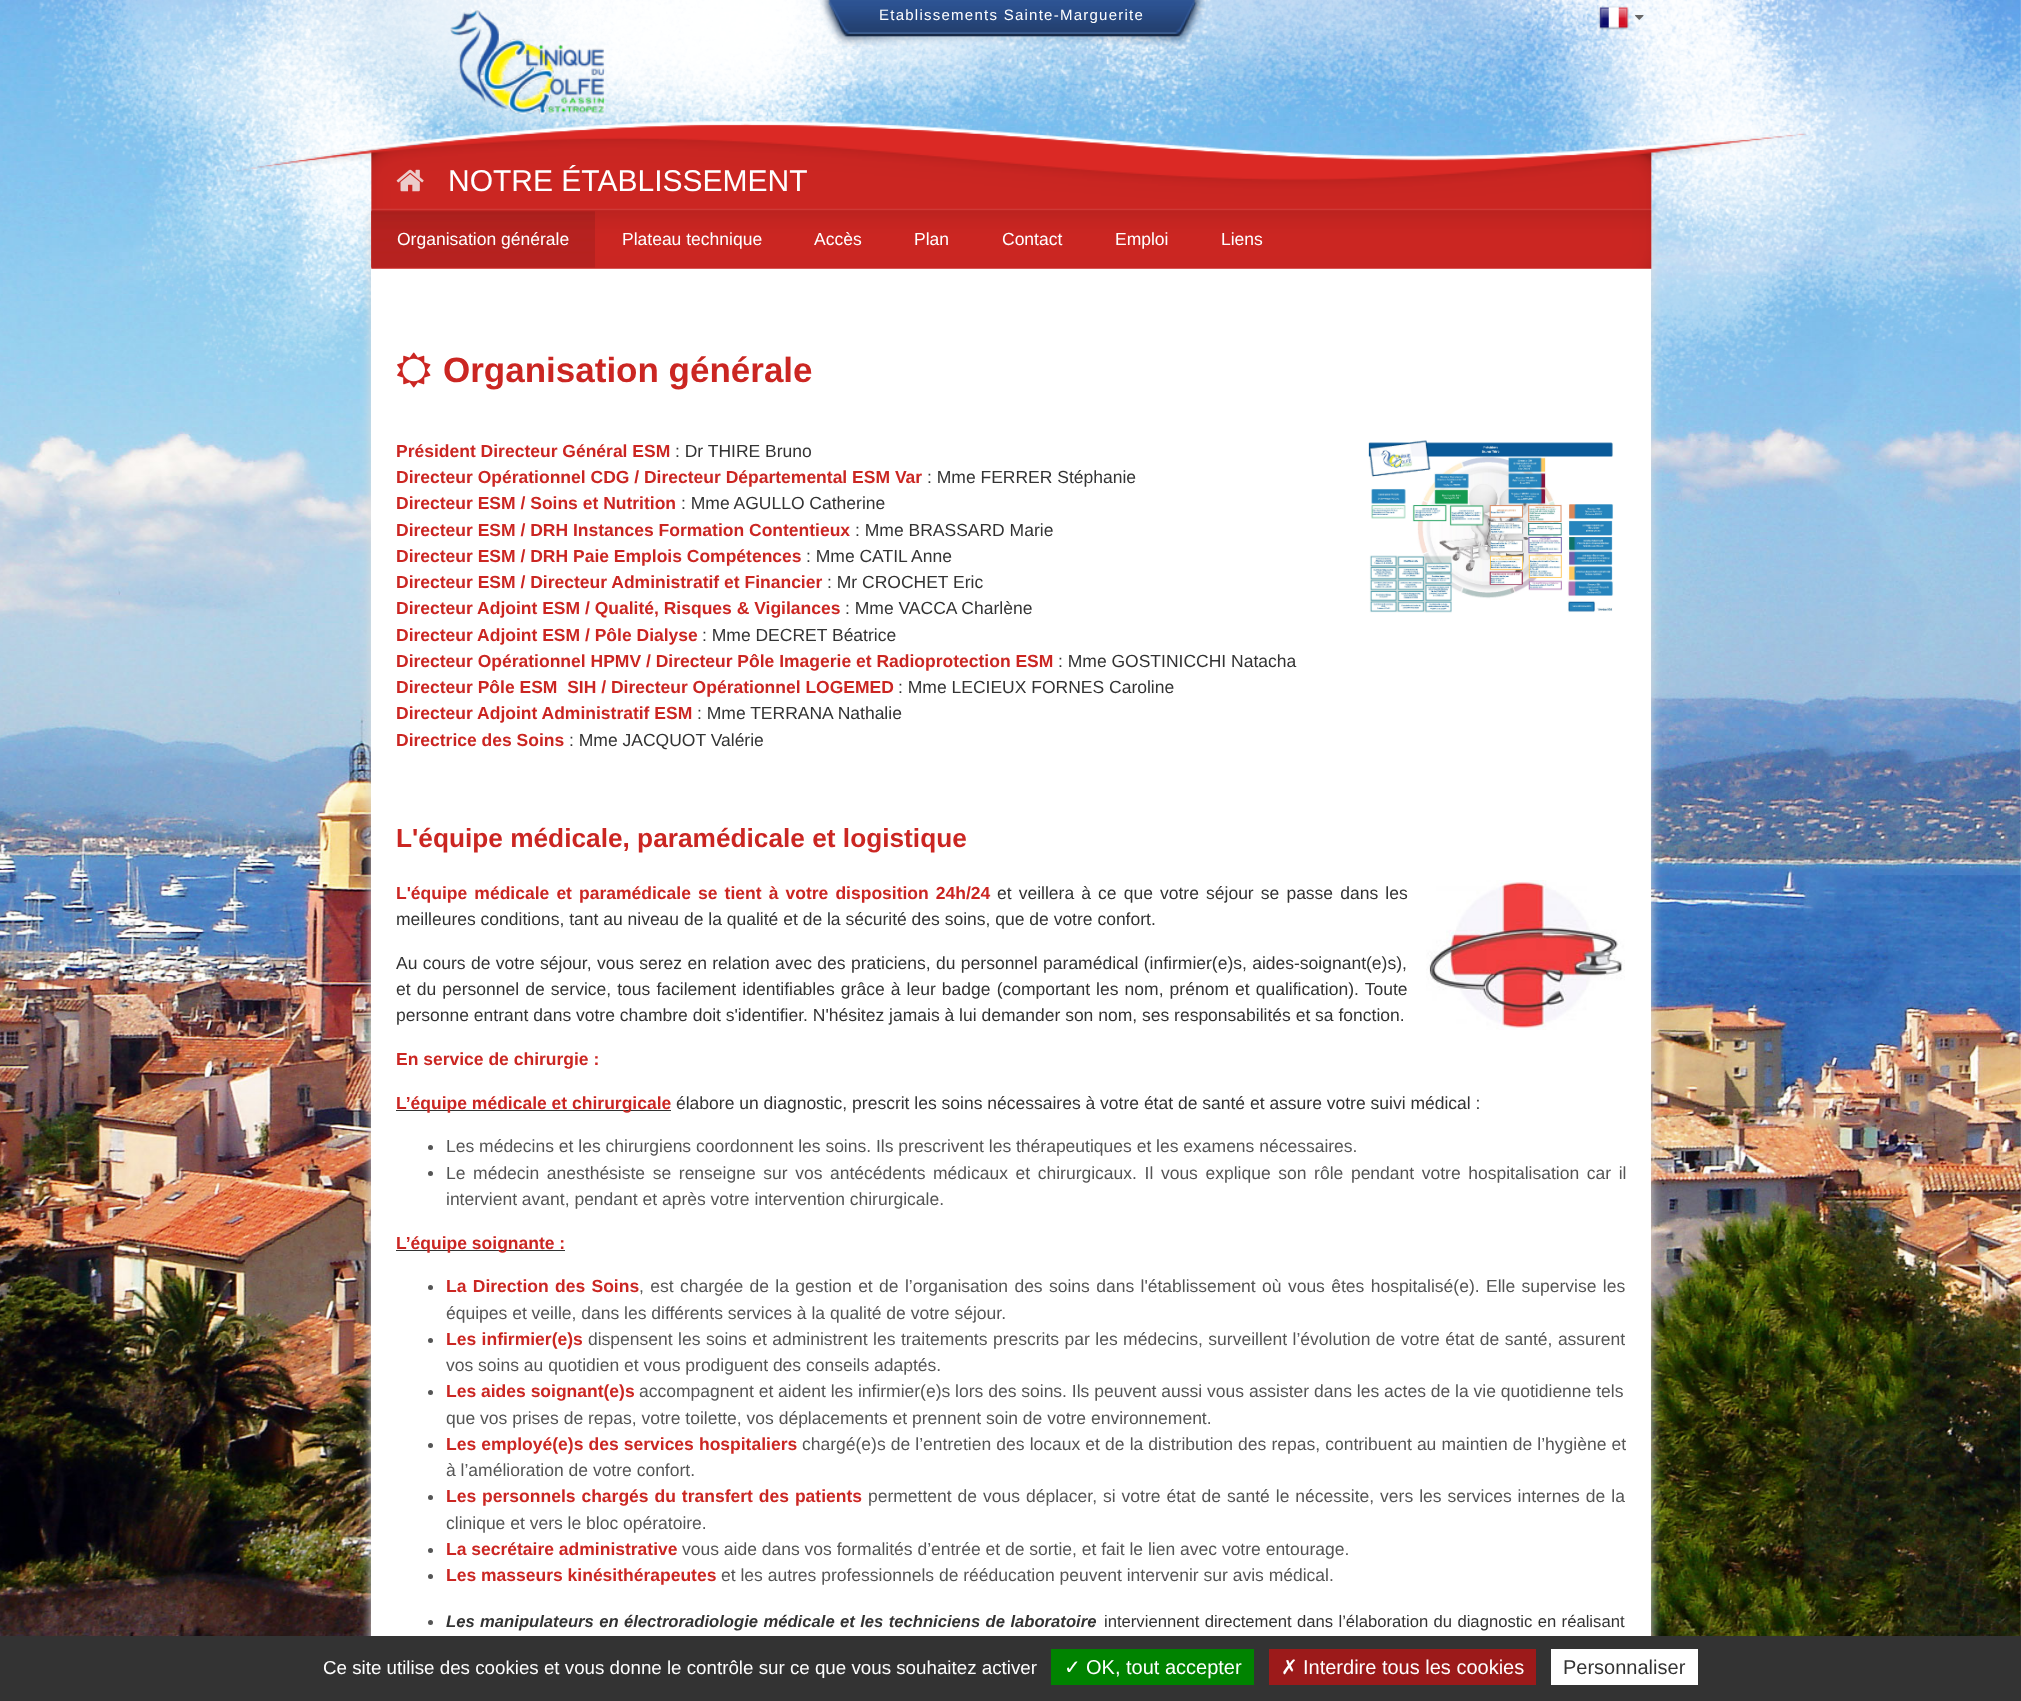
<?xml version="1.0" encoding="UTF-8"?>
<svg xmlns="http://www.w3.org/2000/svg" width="2021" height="1701">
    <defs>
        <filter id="blur1" x="-50%" y="-200%" width="200%" height="500%"><feGaussianBlur stdDeviation="6"/></filter>
    </defs>
    <rect width="100%" height="100%" fill="#FFFFFF"/>
    <image x="0" y="0" width="2021" height="1636" href="img_01.png"/>
    <image x="39" y="0" width="1982" height="410" href="img_02.png"/>
    <image x="450" y="10" width="155" height="105" href="img_03.png"/>
    <image x="820" y="0" width="385" height="47" href="img_04.png"/>
    <text x="879" y="20" font-family="Liberation Sans" font-size="15" letter-spacing="1.25" fill="#FFFFFF">Etablissements Sainte-Marguerite</text>
    <image x="1598" y="6" width="31" height="24" href="img_05.png"/>
    <image x="1635" y="15" width="9" height="5" href="img_06.png"/>
    <rect x="371" y="213" width="1280" height="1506" fill="#DDDDDD" filter="url(#blur1)"/>
    <rect x="371" y="213" width="1280" height="1423" fill="#FFFFFF"/>
    <image x="236" y="121" width="1570" height="148" href="img_07.png"/>
    <text x="448" y="191" font-family="Liberation Sans" font-size="30" fill="#FFFFFF">NOTRE ÉTABLISSEMENT</text>
    <image x="371" y="211" width="224" height="57" href="img_08.png"/>
    <text x="397" y="245" font-family="Liberation Sans" font-size="17.5" fill="#FFFFFF">Organisation générale</text>
    <text x="622" y="245" font-family="Liberation Sans" font-size="17.5" fill="#FFFFFF">Plateau technique</text>
    <text x="814" y="245" font-family="Liberation Sans" font-size="17.5" fill="#FFFFFF">Accès</text>
    <text x="914" y="245" font-family="Liberation Sans" font-size="17.5" fill="#FFFFFF">Plan</text>
    <text x="1002" y="245" font-family="Liberation Sans" font-size="17.5" fill="#FFFFFF">Contact</text>
    <text x="1115" y="245" font-family="Liberation Sans" font-size="17.5" fill="#FFFFFF">Emploi</text>
    <text x="1221" y="245" font-family="Liberation Sans" font-size="17.5" fill="#FFFFFF">Liens</text>
    <image x="396" y="169" width="28" height="23" href="img_09.png"/>
    <image x="397" y="352" width="34" height="36" href="img_10.png"/>
    <text x="443" y="382" font-family="Liberation Sans" font-size="35" font-weight="700" fill="#CB2622">Organisation générale</text>
    <text x="396" y="457" font-family="Liberation Sans" font-size="17.5" font-weight="700" fill="#CB2622">Président Directeur Général ESM</text>
    <text x="675" y="457" font-family="Liberation Sans" font-size="17.5" fill="#333333">: Dr THIRE Bruno</text>
    <text x="396" y="483" font-family="Liberation Sans" font-size="17.5" font-weight="700" fill="#CB2622">Directeur Opérationnel CDG / Directeur Départemental ESM Var</text>
    <text x="927" y="483" font-family="Liberation Sans" font-size="17.5" fill="#333333">: Mme FERRER Stéphanie</text>
    <text x="396" y="509" font-family="Liberation Sans" font-size="17.5" font-weight="700" fill="#CB2622">Directeur ESM / Soins et Nutrition</text>
    <text x="681" y="509" font-family="Liberation Sans" font-size="17.5" fill="#333333">: Mme AGULLO Catherine</text>
    <text x="396" y="536" font-family="Liberation Sans" font-size="17.5" font-weight="700" fill="#CB2622">Directeur ESM / DRH Instances Formation Contentieux</text>
    <text x="855" y="536" font-family="Liberation Sans" font-size="17.5" fill="#333333">: Mme BRASSARD Marie</text>
    <text x="396" y="562" font-family="Liberation Sans" font-size="17.5" font-weight="700" fill="#CB2622">Directeur ESM / DRH Paie Emplois Compétences</text>
    <text x="806" y="562" font-family="Liberation Sans" font-size="17.5" fill="#333333">: Mme CATIL Anne</text>
    <text x="396" y="588" font-family="Liberation Sans" font-size="17.5" font-weight="700" fill="#CB2622">Directeur ESM / Directeur Administratif et Financier</text>
    <text x="827" y="588" font-family="Liberation Sans" font-size="17.5" fill="#333333">: Mr CROCHET Eric</text>
    <text x="396" y="614" font-family="Liberation Sans" font-size="17.5" font-weight="700" fill="#CB2622">Directeur Adjoint ESM / Qualité, Risques &amp; Vigilances</text>
    <text x="845" y="614" font-family="Liberation Sans" font-size="17.5" fill="#333333">: Mme VACCA Charlène</text>
    <text x="396" y="641" font-family="Liberation Sans" font-size="17.5" font-weight="700" fill="#CB2622">Directeur Adjoint ESM / Pôle Dialyse</text>
    <text x="702" y="641" font-family="Liberation Sans" font-size="17.5" fill="#333333">: Mme DECRET Béatrice</text>
    <text x="396" y="667" font-family="Liberation Sans" font-size="17.5" font-weight="700" fill="#CB2622">Directeur Opérationnel HPMV / Directeur Pôle Imagerie et Radioprotection ESM</text>
    <text x="1058" y="667" font-family="Liberation Sans" font-size="17.5" fill="#333333">: Mme GOSTINICCHI Natacha</text>
    <text x="396" y="693" font-family="Liberation Sans" font-size="17.5" font-weight="700" fill="#CB2622" xml:space="preserve">Directeur Pôle ESM  SIH / Directeur Opérationnel LOGEMED</text>
    <text x="898" y="693" font-family="Liberation Sans" font-size="17.5" fill="#333333">: Mme LECIEUX FORNES Caroline</text>
    <text x="396" y="719" font-family="Liberation Sans" font-size="17.5" font-weight="700" fill="#CB2622">Directeur Adjoint Administratif ESM</text>
    <text x="697" y="719" font-family="Liberation Sans" font-size="17.5" fill="#333333">: Mme TERRANA Nathalie</text>
    <text x="396" y="746" font-family="Liberation Sans" font-size="17.5" font-weight="700" fill="#CB2622">Directrice des Soins</text>
    <text x="569" y="746" font-family="Liberation Sans" font-size="17.5" fill="#333333">: Mme JACQUOT Valérie</text>
    <image x="1368" y="440" width="246" height="173" href="img_11.png"/>
    <text x="396" y="847" font-family="Liberation Sans" font-size="26.25" font-weight="700" fill="#CB2622">L'équipe médicale, paramédicale et logistique</text>
    <text x="396" y="899" word-spacing="2.25" font-family="Liberation Sans" font-size="17.5" font-weight="700" fill="#CB2622">L'équipe médicale et paramédicale se tient à votre disposition 24h/24</text>
    <text x="997" y="899" word-spacing="2.25" font-family="Liberation Sans" font-size="17.5" fill="#333333">et veillera à ce que votre séjour se passe dans les</text>
    <image x="1426" y="880" width="199" height="150" href="img_12.png"/>
    <text x="396" y="925" font-family="Liberation Sans" font-size="17.5" fill="#333333">meilleures conditions, tant au niveau de la qualité et de la sécurité des soins, que de votre confort.</text>
    <text font-family="Liberation Sans" font-size="17.5" fill="#333333">
        <tspan x="396" y="969" word-spacing="0.5">Au cours de votre séjour, vous serez en relation avec des praticiens, du personnel paramédical (infirmier(e)s, aides-soignant(e)s),</tspan>
        <tspan x="396" y="995" word-spacing="1.25">et du personnel de service, tous facilement identifiables grâce à leur badge (comportant les nom, prénom et qualification). Toute</tspan>
        <tspan x="396" y="1021">personne entrant dans votre chambre doit s'identifier. N'hésitez jamais à lui demander son nom, ses responsabilités et sa fonction.</tspan>
    </text>
    <text x="396" y="1065" font-family="Liberation Sans" font-size="17.5" font-weight="700" fill="#CB2622">En service de chirurgie :</text>
    <rect x="396" y="1110" width="275" height="1" fill="#333333"/>
    <text x="396" y="1109" font-family="Liberation Sans" font-size="17.5" font-weight="700" fill="#CB2622">L’équipe médicale et chirurgicale</text>
    <text x="676" y="1109" font-family="Liberation Sans" font-size="17.5" fill="#333333">élabore un diagnostic, prescrit les soins nécessaires à votre état de santé et assure votre suivi médical :</text>
    <circle cx="430.5" cy="1147.5" r="2.5" fill="#555555"/>
    <text x="446" y="1152" font-family="Liberation Sans" font-size="17.5" fill="#555555">Les médecins et les chirurgiens coordonnent les soins. Ils prescrivent les thérapeutiques et les examens nécessaires.</text>
    <circle cx="430.5" cy="1173.5" r="2.5" fill="#555555"/>
    <text font-family="Liberation Sans" font-size="17.5" fill="#555555">
        <tspan x="446" y="1179" word-spacing="2.75">Le médecin anesthésiste se renseigne sur vos antécédents médicaux et chirurgicaux. Il vous explique son rôle pendant votre hospitalisation car il</tspan>
        <tspan x="446" y="1205">intervient avant, pendant et après votre intervention chirurgicale.</tspan>
    </text>
    <rect x="396" y="1250" width="169" height="1" fill="#333333"/>
    <text x="396" y="1249" font-family="Liberation Sans" font-size="17.5" font-weight="700" fill="#CB2622">L’équipe soignante :</text>
    <circle cx="430.5" cy="1287.5" r="2.5" fill="#555555"/>
    <text x="446" y="1292" word-spacing="1.5" font-family="Liberation Sans" font-size="17.5" font-weight="700" fill="#CB2622">La Direction des Soins</text>
    <text x="639" y="1292" word-spacing="1.5" font-family="Liberation Sans" font-size="17.5" fill="#555555">, est chargée de la gestion et de l’organisation des soins dans l'établissement où vous êtes hospitalisé(e). Elle supervise les</text>
    <text x="446" y="1319" font-family="Liberation Sans" font-size="17.5" fill="#555555">équipes et veille, dans les différents services à la qualité de votre séjour.</text>
    <circle cx="430.5" cy="1340.5" r="2.5" fill="#555555"/>
    <text x="446" y="1345" word-spacing="0.6" font-family="Liberation Sans" font-size="17.5" font-weight="700" fill="#CB2622">Les infirmier(e)s</text>
    <text x="588" y="1345" word-spacing="0.6" font-family="Liberation Sans" font-size="17.5" fill="#555555">dispensent les soins et administrent les traitements prescrits par les médecins, surveillent l’évolution de votre état de santé, assurent</text>
    <text x="446" y="1371" font-family="Liberation Sans" font-size="17.5" fill="#555555">vos soins au quotidien et vous prodiguent des conseils adaptés.</text>
    <circle cx="430.5" cy="1392.5" r="2.5" fill="#555555"/>
    <text x="446" y="1397" font-family="Liberation Sans" font-size="17.5" font-weight="700" fill="#CB2622">Les aides soignant(e)s</text>
    <text x="639" y="1397" font-family="Liberation Sans" font-size="17.5" fill="#555555">accompagnent et aident les infirmier(e)s lors des soins. Ils peuvent aussi vous assister dans les actes de la vie quotidienne tels</text>
    <text x="446" y="1424" font-family="Liberation Sans" font-size="17.5" fill="#555555">que vos prises de repas, votre toilette, vos déplacements et prennent soin de votre environnement.</text>
    <circle cx="430.5" cy="1445.5" r="2.5" fill="#555555"/>
    <text x="446" y="1450" word-spacing="0.25" font-family="Liberation Sans" font-size="17.5" font-weight="700" fill="#CB2622">Les employé(e)s des services hospitaliers</text>
    <text x="802" y="1450" word-spacing="0.25" font-family="Liberation Sans" font-size="17.5" fill="#555555">chargé(e)s de l’entretien des locaux et de la distribution des repas, contribuent au maintien de l’hygiène et</text>
    <text x="446" y="1476" font-family="Liberation Sans" font-size="17.5" fill="#555555">à l’amélioration de votre confort.</text>
    <circle cx="430.5" cy="1497.5" r="2.5" fill="#555555"/>
    <text x="446" y="1502" word-spacing="1.1" font-family="Liberation Sans" font-size="17.5" font-weight="700" fill="#CB2622">Les personnels chargés du transfert des patients</text>
    <text x="868" y="1502" word-spacing="1.1" font-family="Liberation Sans" font-size="17.5" fill="#555555">permettent de vous déplacer, si votre état de santé le nécessite, vers les services internes de la</text>
    <text x="446" y="1529" font-family="Liberation Sans" font-size="17.5" fill="#555555">clinique et vers le bloc opératoire.</text>
    <circle cx="430.5" cy="1550.5" r="2.5" fill="#555555"/>
    <text x="446" y="1555" font-family="Liberation Sans" font-size="17.5" font-weight="700" fill="#CB2622">La secrétaire administrative</text>
    <text x="682" y="1555" font-family="Liberation Sans" font-size="17.5" fill="#555555">vous aide dans vos formalités d’entrée et de sortie, et fait le lien avec votre entourage.</text>
    <circle cx="430.5" cy="1576.5" r="2.5" fill="#555555"/>
    <text x="446" y="1581" font-family="Liberation Sans" font-size="17.5" font-weight="700" fill="#CB2622">Les masseurs kinésithérapeutes</text>
    <text x="721" y="1581" font-family="Liberation Sans" font-size="17.5" fill="#555555">et les autres professionnels de rééducation peuvent intervenir sur avis médical.</text>
    <circle cx="430.5" cy="1622.5" r="2.5" fill="#555555"/>
    <text x="446" y="1627" word-spacing="0.75" font-family="Liberation Sans" font-size="16.65" font-weight="700" font-style="italic" fill="#333333">Les manipulateurs en électroradiologie médicale et les techniciens de laboratoire</text>
    <text x="1104" y="1627" word-spacing="0.75" font-family="Liberation Sans" font-size="16.65" fill="#333333">interviennent directement dans l’élaboration du diagnostic en réalisant</text>
    <rect x="0" y="1636" width="2021" height="65" fill="#333333"/>
    <text x="323" y="1674" font-family="Liberation Sans" font-size="18.75" fill="#FFFFFF">Ce site utilise des cookies et vous donne le contrôle sur ce que vous souhaitez activer</text>
    <rect x="1051" y="1649" width="203" height="36" fill="#008300"/>
    <text x="1064" y="1674" font-family="DejaVu Sans" font-size="20" fill="#FFFFFF">✓</text>
    <text x="1086" y="1674" font-family="Liberation Sans" font-size="20" fill="#FFFFFF">OK, tout accepter</text>
    <rect x="1269" y="1649" width="267" height="36" fill="#9C1A1A"/>
    <text x="1281" y="1674" font-family="DejaVu Sans" font-size="20" fill="#FFFFFF">✗</text>
    <text x="1303" y="1674" font-family="Liberation Sans" font-size="20" fill="#FFFFFF">Interdire tous les cookies</text>
    <rect x="1551" y="1649" width="147" height="36" fill="#FFFFFF"/>
    <text x="1563" y="1674" font-family="Liberation Sans" font-size="20" fill="#333333">Personnaliser</text>
</svg>
